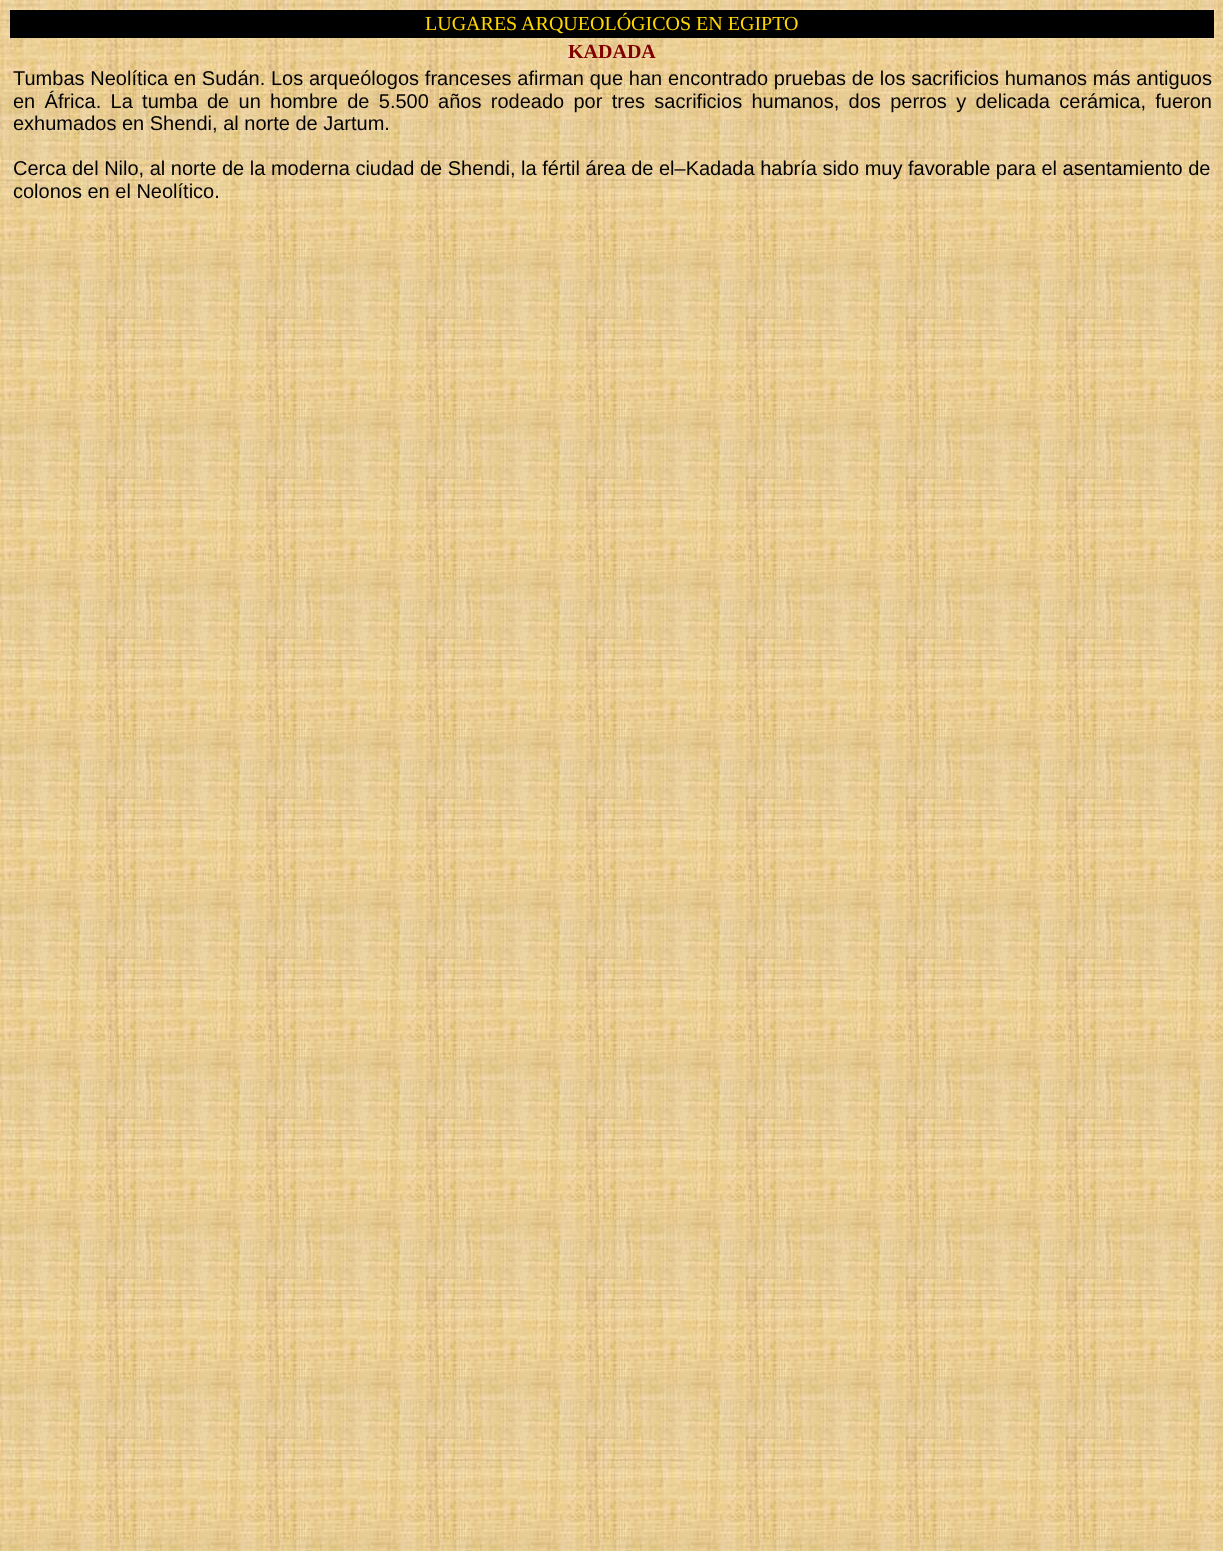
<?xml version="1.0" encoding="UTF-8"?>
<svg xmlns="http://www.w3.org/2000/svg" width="1223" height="1551">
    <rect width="100%" height="100%" fill="#FFFFFF"/>
    <image x="0" y="0" width="1223" height="1551" href="img_01.png"/>
    <rect x="10" y="10" width="1204" height="28" fill="#000000"/>
    <text x="425" y="30" font-family="Liberation Serif" font-size="20" fill="#FFD700">LUGARES ARQUEOLÓGICOS EN EGIPTO</text>
    <text x="568" y="58" font-family="Liberation Serif" font-size="20" font-weight="700" fill="#800000">KADADA</text>
    <text font-family="Liberation Sans" font-size="20" fill="#000000">
        <tspan x="13" y="85" word-spacing="0.2">Tumbas Neolítica en Sudán. Los arqueólogos franceses afirman que han encontrado pruebas de los sacrificios humanos más antiguos</tspan>
        <tspan x="13" y="108" word-spacing="3.75">en África. La tumba de un hombre de 5.500 años rodeado por tres sacrificios humanos, dos perros y delicada cerámica, fueron</tspan>
        <tspan x="13" y="130">exhumados en Shendi, al norte de Jartum.</tspan>
    </text>
    <text font-family="Liberation Sans" font-size="20" fill="#000000">
        <tspan x="13" y="175">Cerca del Nilo, al norte de la moderna ciudad de Shendi, la fértil área de el–Kadada habría sido muy favorable para el asentamiento de</tspan>
        <tspan x="13" y="198">colonos en el Neolítico.</tspan>
    </text>
</svg>
